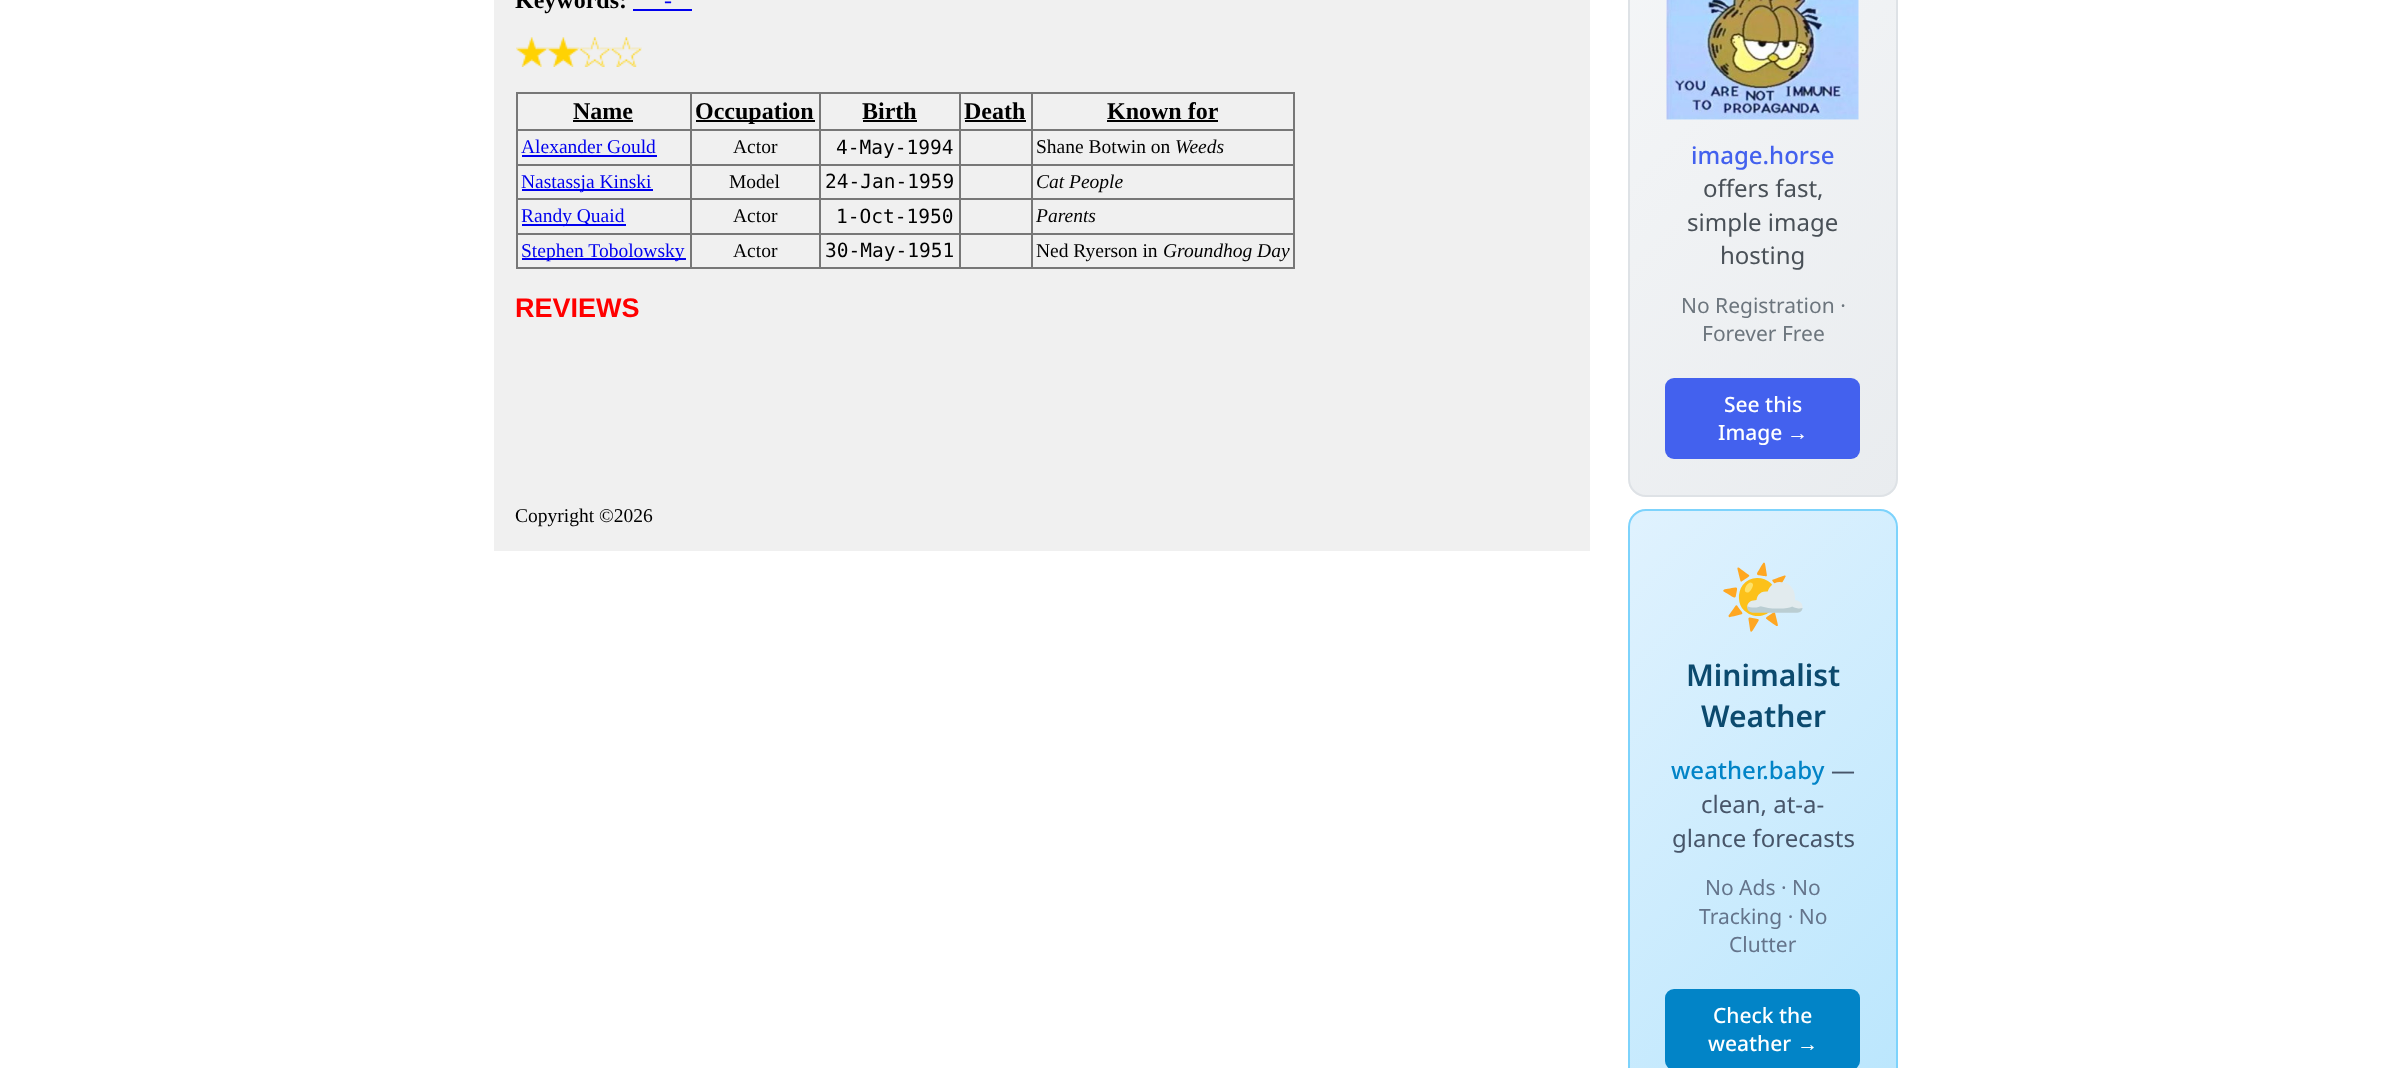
<?xml version="1.0" encoding="UTF-8"?>
<svg xmlns="http://www.w3.org/2000/svg" width="2390" height="1068">
    <defs>
        <clipPath id="clip1"><rect x="1628" y="-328" width="270" height="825" rx="18"/></clipPath>
        <linearGradient id="g1" gradientUnits="userSpaceOnUse" x1="1490" y1="-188" x2="2035" y2="356"><stop offset="0" stop-color="#F8F9FA"/><stop offset="1" stop-color="#E9ECEF"/></linearGradient>
        <clipPath id="clip2"><rect x="1628" y="509" width="270" height="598" rx="18"/></clipPath>
        <linearGradient id="g2" gradientUnits="userSpaceOnUse" x1="1547" y1="592" x2="1978" y2="1023"><stop offset="0" stop-color="#E0F2FE"/><stop offset="1" stop-color="#BAE6FD"/></linearGradient>
    </defs>
    <rect width="100%" height="100%" fill="#FFFFFF"/>
    <rect x="494" y="0" width="1096" height="551" fill="#F0F0F0"/>
    <text x="515" y="8" font-family="Liberation Serif" font-size="24" font-weight="700" fill="#000000">Keywords:</text>
    <text x="664" y="8" font-family="Liberation Serif" font-size="24" fill="#0000EE">-</text>
    <rect x="633" y="9" width="59" height="2" fill="#0000EE"/>
    <image x="516" y="37" width="32" height="30" href="img_01.png"/>
    <image x="547" y="37" width="32" height="30" href="img_02.png"/>
    <image x="579" y="37" width="32" height="30" href="img_03.png"/>
    <image x="610" y="37" width="32" height="30" href="img_04.png"/>
    <rect x="516" y="92" width="779" height="2" fill="#777777"/>
    <rect x="1293" y="92" width="2" height="177" fill="#777777"/>
    <rect x="516" y="267" width="779" height="2" fill="#777777"/>
    <rect x="516" y="92" width="2" height="177" fill="#777777"/>
    <text x="573" y="119" font-family="Liberation Serif" font-size="24" font-weight="700" fill="#000000">Name</text>
    <rect x="573" y="120" width="60" height="2" fill="#000000"/>
    <rect x="1031" y="129" width="264" height="2" fill="#777777"/>
    <rect x="1031" y="164" width="264" height="2" fill="#777777"/>
    <rect x="1031" y="198" width="264" height="2" fill="#777777"/>
    <rect x="1031" y="233" width="264" height="2" fill="#777777"/>
    <rect x="1031" y="233" width="2" height="36" fill="#777777"/>
    <rect x="959" y="233" width="73" height="2" fill="#777777"/>
    <rect x="1031" y="198" width="2" height="36" fill="#777777"/>
    <rect x="959" y="198" width="73" height="2" fill="#777777"/>
    <rect x="1031" y="164" width="2" height="36" fill="#777777"/>
    <rect x="959" y="164" width="73" height="2" fill="#777777"/>
    <rect x="1031" y="129" width="2" height="36" fill="#777777"/>
    <rect x="959" y="129" width="73" height="2" fill="#777777"/>
    <rect x="959" y="233" width="2" height="36" fill="#777777"/>
    <rect x="819" y="233" width="141" height="2" fill="#777777"/>
    <rect x="959" y="198" width="2" height="36" fill="#777777"/>
    <rect x="819" y="198" width="141" height="2" fill="#777777"/>
    <rect x="959" y="164" width="2" height="36" fill="#777777"/>
    <rect x="819" y="164" width="141" height="2" fill="#777777"/>
    <rect x="959" y="129" width="2" height="36" fill="#777777"/>
    <rect x="819" y="129" width="141" height="2" fill="#777777"/>
    <rect x="819" y="233" width="2" height="36" fill="#777777"/>
    <rect x="690" y="233" width="131" height="2" fill="#777777"/>
    <rect x="819" y="198" width="2" height="36" fill="#777777"/>
    <rect x="690" y="198" width="131" height="2" fill="#777777"/>
    <rect x="819" y="164" width="2" height="36" fill="#777777"/>
    <rect x="690" y="164" width="131" height="2" fill="#777777"/>
    <rect x="819" y="129" width="2" height="36" fill="#777777"/>
    <rect x="690" y="129" width="131" height="2" fill="#777777"/>
    <rect x="690" y="233" width="2" height="36" fill="#777777"/>
    <rect x="516" y="233" width="176" height="2" fill="#777777"/>
    <rect x="690" y="198" width="2" height="36" fill="#777777"/>
    <rect x="516" y="198" width="176" height="2" fill="#777777"/>
    <rect x="690" y="164" width="2" height="36" fill="#777777"/>
    <rect x="516" y="164" width="176" height="2" fill="#777777"/>
    <rect x="690" y="129" width="2" height="36" fill="#777777"/>
    <rect x="516" y="129" width="176" height="2" fill="#777777"/>
    <rect x="690" y="92" width="2" height="39" fill="#777777"/>
    <rect x="696" y="120" width="119" height="2" fill="#000000"/>
    <text x="695" y="119" font-family="Liberation Serif" font-size="24" font-weight="700" fill="#000000">Occupation</text>
    <rect x="819" y="92" width="2" height="39" fill="#777777"/>
    <text x="862" y="119" font-family="Liberation Serif" font-size="24" font-weight="700" fill="#000000">Birth</text>
    <rect x="863" y="120" width="54" height="2" fill="#000000"/>
    <rect x="959" y="92" width="2" height="39" fill="#777777"/>
    <text x="964" y="119" font-family="Liberation Serif" font-size="24" font-weight="700" fill="#000000">Death</text>
    <rect x="965" y="120" width="61" height="2" fill="#000000"/>
    <rect x="1031" y="92" width="2" height="39" fill="#777777"/>
    <text x="1107" y="119" font-family="Liberation Serif" font-size="24" font-weight="700" fill="#000000">Known for</text>
    <rect x="1107" y="120" width="111" height="2" fill="#000000"/>
    <text x="521" y="153" font-family="Liberation Serif" font-size="19.5" fill="#0000EE">Alexander Gould</text>
    <rect x="522" y="155" width="135" height="2" fill="#0000EE"/>
    <text x="733" y="153" font-family="Liberation Serif" font-size="19.5" fill="#000000">Actor</text>
    <text x="836" y="154" font-family="DejaVu Sans Mono" font-size="19.5" fill="#000000">4-May-1994</text>
    <text x="1036" y="153" font-family="Liberation Serif" font-size="19.5" fill="#000000">Shane Botwin on</text>
    <text x="1175" y="153" font-family="Liberation Serif" font-size="19.5" font-style="italic" fill="#000000">Weeds</text>
    <rect x="522" y="189" width="131" height="2" fill="#0000EE"/>
    <text x="521" y="188" font-family="Liberation Serif" font-size="19.5" fill="#0000EE">Nastassja Kinski</text>
    <text x="729" y="188" font-family="Liberation Serif" font-size="19.5" fill="#000000">Model</text>
    <text x="825" y="188" font-family="DejaVu Sans Mono" font-size="19.5" fill="#000000">24-Jan-1959</text>
    <text x="1036" y="188" font-family="Liberation Serif" font-size="19.5" font-style="italic" fill="#000000">Cat People</text>
    <rect x="522" y="224" width="104" height="2" fill="#0000EE"/>
    <text x="521" y="222" font-family="Liberation Serif" font-size="19.5" fill="#0000EE">Randy Quaid</text>
    <text x="733" y="222" font-family="Liberation Serif" font-size="19.5" fill="#000000">Actor</text>
    <text x="836" y="223" font-family="DejaVu Sans Mono" font-size="19.5" fill="#000000">1-Oct-1950</text>
    <text x="1036" y="222" font-family="Liberation Serif" font-size="19.5" font-style="italic" fill="#000000">Parents</text>
    <rect x="522" y="258" width="164" height="2" fill="#0000EE"/>
    <text x="521" y="257" font-family="Liberation Serif" font-size="19.5" fill="#0000EE">Stephen Tobolowsky</text>
    <text x="733" y="257" font-family="Liberation Serif" font-size="19.5" fill="#000000">Actor</text>
    <text x="825" y="257" font-family="DejaVu Sans Mono" font-size="19.5" fill="#000000">30-May-1951</text>
    <text x="1036" y="257" font-family="Liberation Serif" font-size="19.5" fill="#000000">Ned Ryerson in</text>
    <text x="1163" y="257" font-family="Liberation Serif" font-size="19.5" font-style="italic" fill="#000000">Groundhog Day</text>
    <text x="515" y="317" font-family="Liberation Sans" font-size="27" font-weight="700" fill="#FF0000">REVIEWS</text>
    <text x="515" y="522" font-family="Liberation Serif" font-size="19.5" fill="#000000">Copyright ©2026</text>
    <g clip-path="url(#clip1)">
        <rect x="1629" y="0" width="267" height="495" fill="url(#g1)"/>
    </g>
    <rect x="1629" y="-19" width="268" height="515" rx="17" fill="none" stroke="#DEE2E6" stroke-width="2"/>
    <image x="1666" y="0" width="193" height="120" href="img_05.png"/>
    <text x="1691" y="164" font-family="Noto Sans" font-size="24" font-weight="500" fill="#4361EE">image.horse</text>
    <text x="1703" y="197" font-family="Noto Sans" font-size="24" fill="#495057">offers fast,</text>
    <text x="1687" y="231" font-family="Noto Sans" font-size="24" fill="#495057">simple image</text>
    <text x="1720" y="264" font-family="Noto Sans" font-size="24" fill="#495057">hosting</text>
    <text x="1681" y="313" font-family="Noto Sans" font-size="21" fill="#6C757D">No Registration ·</text>
    <text x="1702" y="341" font-family="Noto Sans" font-size="21" fill="#6C757D">Forever Free</text>
    <rect x="1665" y="378" width="195" height="81" rx="9" fill="#4361EE"/>
    <text x="1724" y="412" font-family="Noto Sans" font-size="21" font-weight="500" fill="#FFFFFF">See this</text>
    <text x="1718" y="440" font-family="Noto Sans" font-size="21" font-weight="500" fill="#FFFFFF">Image</text>
    <text x="1787" y="440" font-family="Liberation Sans" font-size="21" fill="#FFFFFF">→</text>
    <g clip-path="url(#clip2)">
        <rect x="1629" y="510" width="267" height="558" fill="url(#g2)"/>
    </g>
    <rect x="1629" y="510" width="268" height="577" rx="17" fill="none" stroke="#7DD3FC" stroke-width="2"/>
    <text x="1718" y="622" font-family="Noto Color Emoji" font-size="72" fill="#0000EE">🌤️</text>
    <text x="1686" y="686" font-family="Noto Sans" font-size="30" font-weight="600" fill="#0C4A6E">Minimalist</text>
    <text x="1701" y="727" font-family="Noto Sans" font-size="30" font-weight="600" fill="#0C4A6E">Weather</text>
    <text x="1671" y="779" font-family="Noto Sans" font-size="24" font-weight="500" fill="#0284C7">weather.baby</text>
    <text x="1831" y="779" font-family="Noto Sans" font-size="24" fill="#475569">—</text>
    <text x="1701" y="813" font-family="Noto Sans" font-size="24" fill="#475569">clean, at-a-</text>
    <text x="1672" y="847" font-family="Noto Sans" font-size="24" fill="#475569">glance forecasts</text>
    <text x="1705" y="895" font-family="Noto Sans" font-size="21" fill="#64748B">No Ads · No</text>
    <text x="1699" y="924" font-family="Noto Sans" font-size="21" fill="#64748B">Tracking · No</text>
    <text x="1729" y="952" font-family="Noto Sans" font-size="21" fill="#64748B">Clutter</text>
    <rect x="1665" y="989" width="195" height="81" rx="9" fill="#0284C7"/>
    <text x="1713" y="1023" font-family="Noto Sans" font-size="21" font-weight="500" fill="#FFFFFF">Check the</text>
    <text x="1708" y="1051" font-family="Noto Sans" font-size="21" font-weight="500" fill="#FFFFFF">weather</text>
    <text x="1797" y="1051" font-family="Liberation Sans" font-size="21" fill="#FFFFFF">→</text>
</svg>
